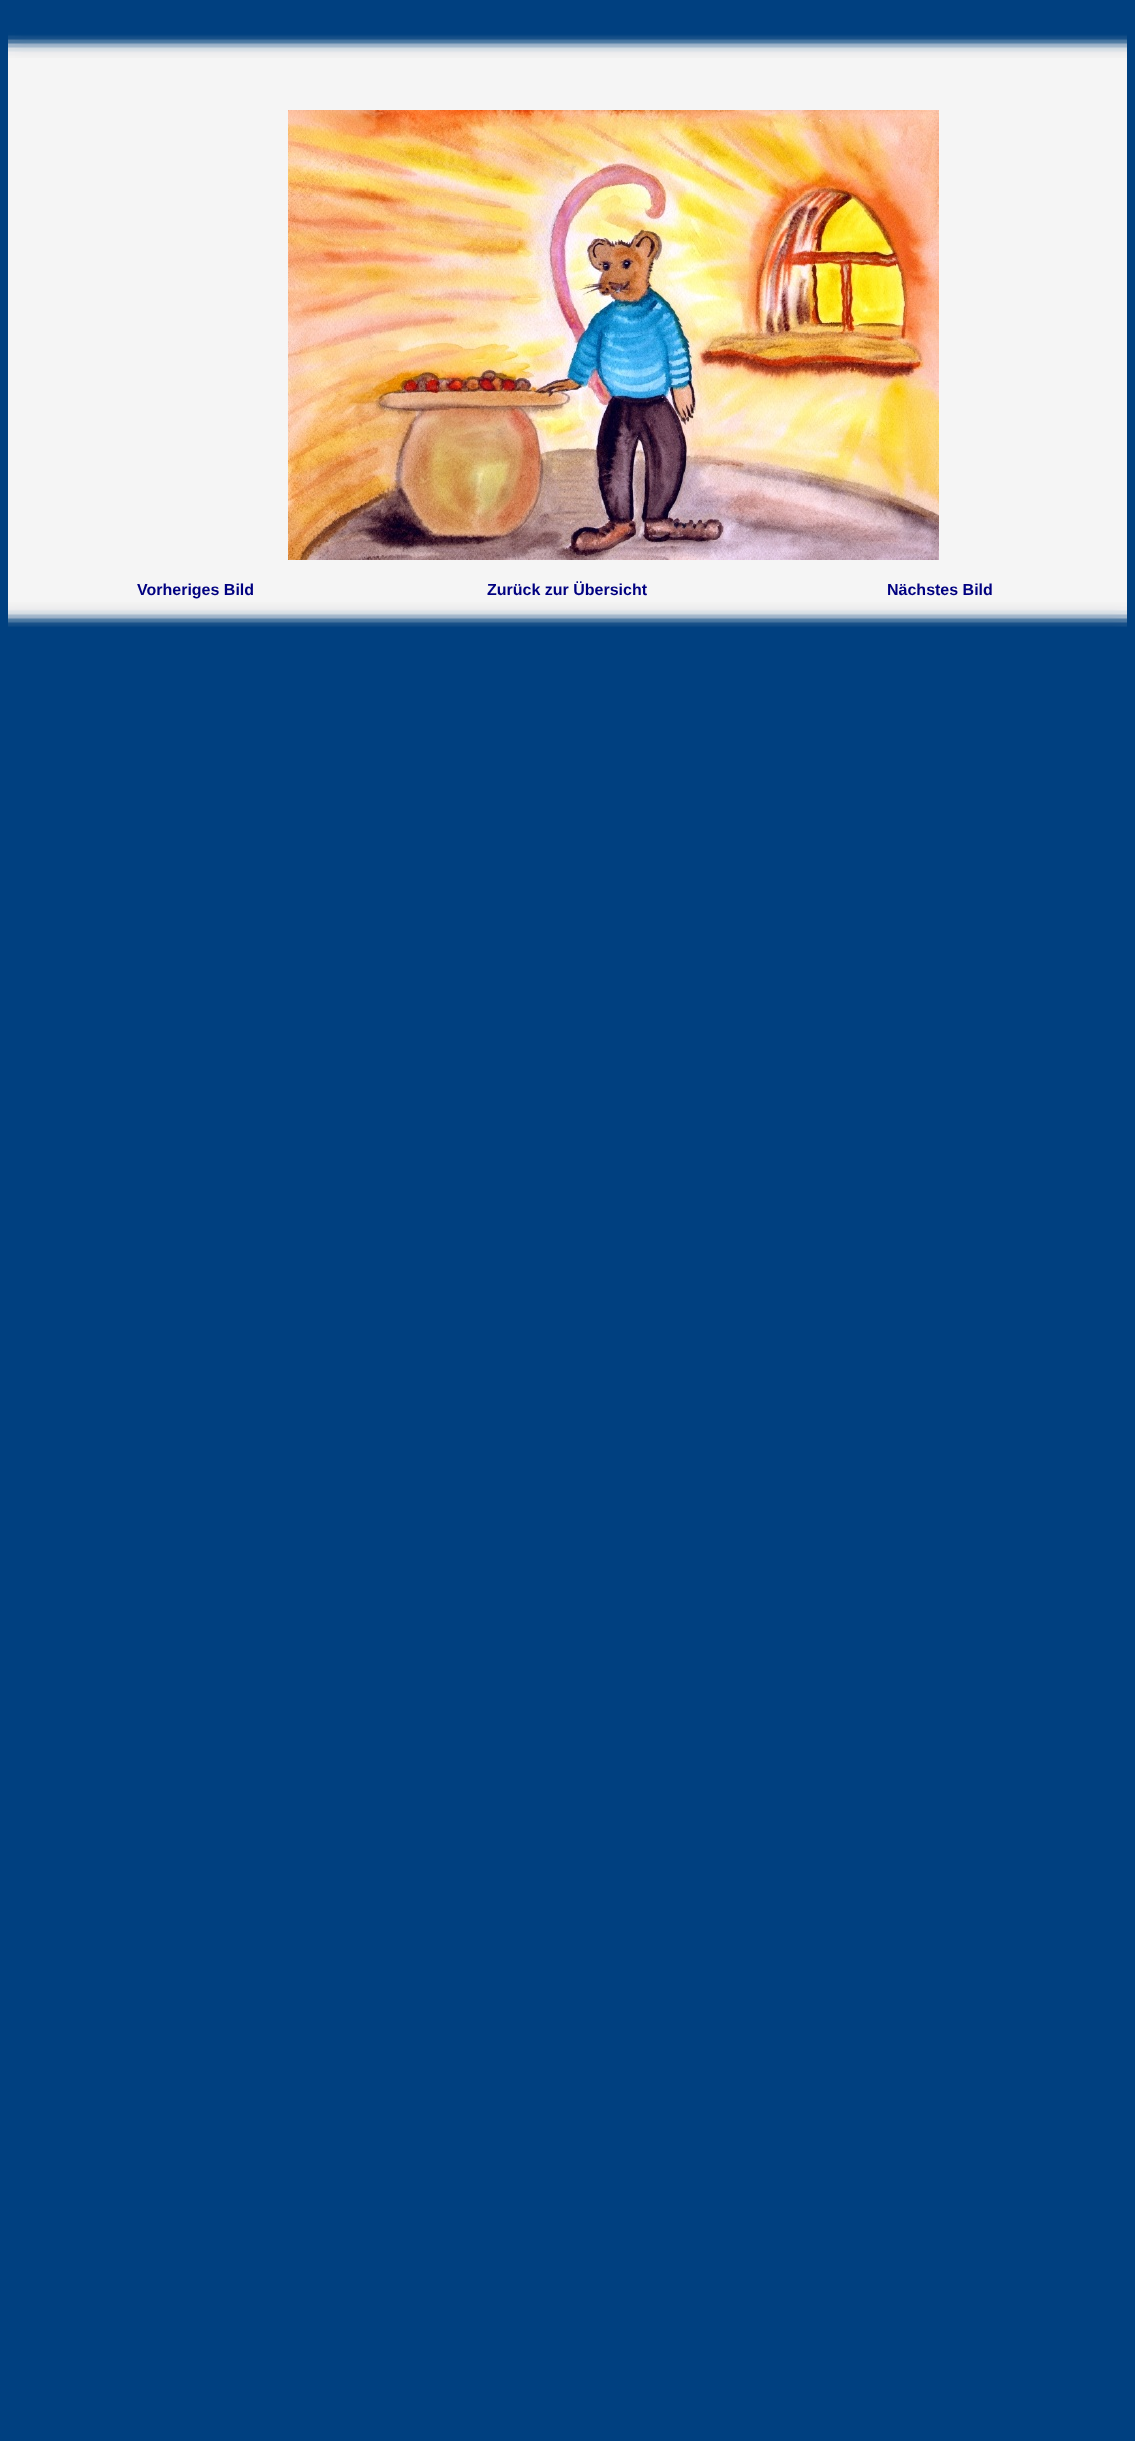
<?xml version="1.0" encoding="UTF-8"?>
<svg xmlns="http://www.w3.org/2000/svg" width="1135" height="2441">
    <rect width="100%" height="100%" fill="#004080"/>
    <rect x="8" y="58" width="1119" height="544" fill="#F5F5F5"/>
    <image x="8" y="26" width="1119" height="32" href="img_01.png"/>
    <image x="288" y="110" width="651" height="450" href="img_02.png"/>
    <text x="137" y="595" font-family="Liberation Sans" font-size="16" font-weight="700" fill="#000080">Vorheriges Bild</text>
    <text x="487" y="595" font-family="Liberation Sans" font-size="16" font-weight="700" fill="#000080">Zurück zur Übersicht</text>
    <text x="887" y="595" font-family="Liberation Sans" font-size="16" font-weight="700" fill="#000080">Nächstes Bild</text>
    <image x="8" y="602" width="1119" height="25" href="img_03.png"/>
</svg>
